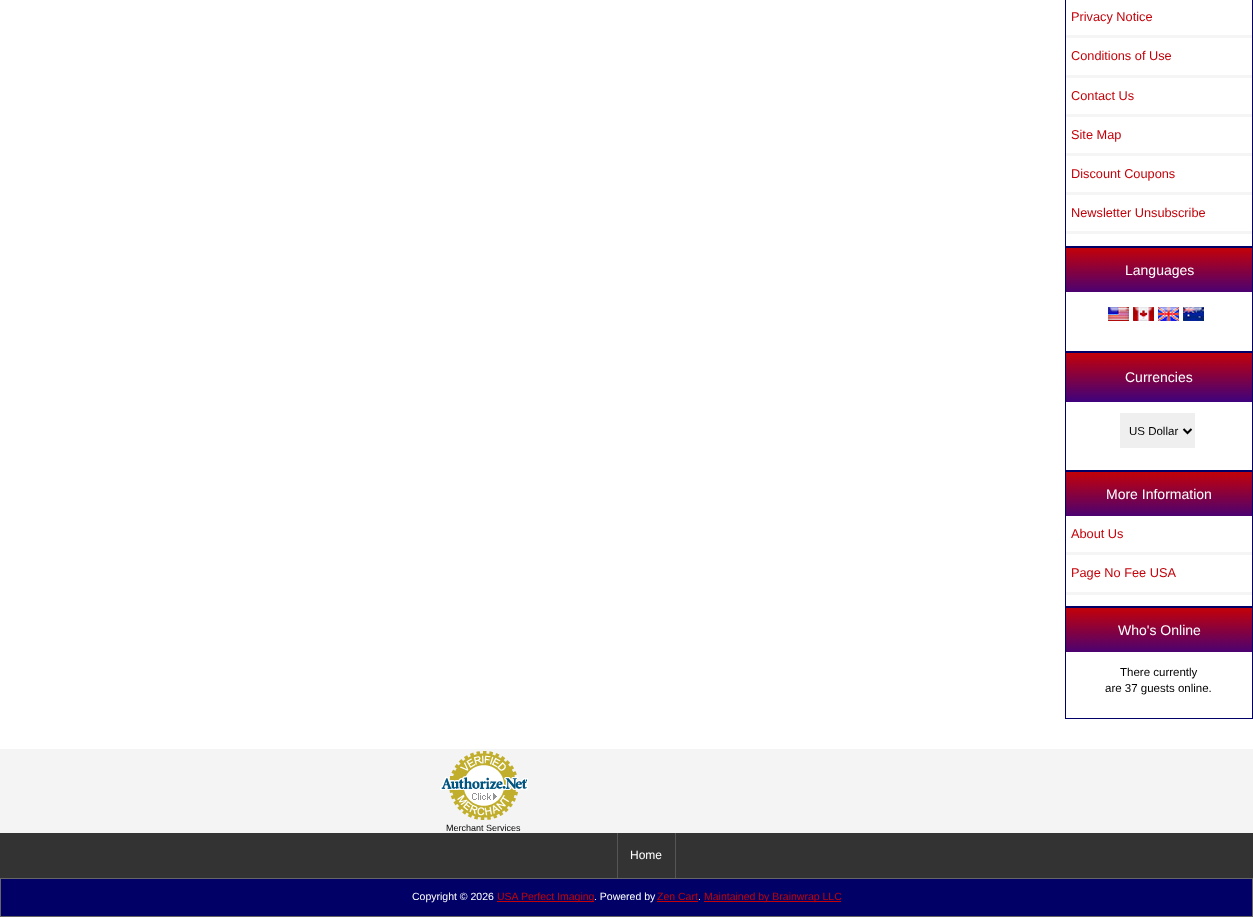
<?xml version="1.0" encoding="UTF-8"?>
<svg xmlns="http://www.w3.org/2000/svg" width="1253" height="917">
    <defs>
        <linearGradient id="g1" gradientUnits="userSpaceOnUse" x1="1159" y1="248" x2="1159" y2="303"><stop offset="0" stop-color="#C30109"/><stop offset="1" stop-color="#2E028B"/></linearGradient>
        <linearGradient id="g2" gradientUnits="userSpaceOnUse" x1="1159" y1="353" x2="1159" y2="408"><stop offset="0" stop-color="#C30109"/><stop offset="1" stop-color="#2E028B"/></linearGradient>
        <linearGradient id="g3" gradientUnits="userSpaceOnUse" x1="1159" y1="472" x2="1159" y2="527"><stop offset="0" stop-color="#C30109"/><stop offset="1" stop-color="#2E028B"/></linearGradient>
        <linearGradient id="g4" gradientUnits="userSpaceOnUse" x1="1159" y1="608" x2="1159" y2="663"><stop offset="0" stop-color="#C30109"/><stop offset="1" stop-color="#2E028B"/></linearGradient>
    </defs>
    <rect width="100%" height="100%" fill="#F4F4F4"/>
    <rect x="0" y="0" width="1253" height="749" fill="#FFFFFF"/>
    <rect x="1065.5" y="-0.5" width="187" height="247" fill="none" stroke="#000066"/>
    <rect x="1066" y="35" width="186" height="3" fill="#F5F5F5"/>
    <text x="1071" y="21" font-family="Liberation Sans" font-size="12.75" fill="#C30109">Privacy Notice</text>
    <rect x="1066" y="75" width="186" height="3" fill="#F5F5F5"/>
    <text x="1071" y="60" font-family="Liberation Sans" font-size="12.75" fill="#C30109">Conditions of Use</text>
    <rect x="1066" y="114" width="186" height="3" fill="#F5F5F5"/>
    <text x="1071" y="100" font-family="Liberation Sans" font-size="12.75" fill="#C30109">Contact Us</text>
    <rect x="1066" y="153" width="186" height="3" fill="#F5F5F5"/>
    <text x="1071" y="139" font-family="Liberation Sans" font-size="12.75" fill="#C30109">Site Map</text>
    <rect x="1066" y="192" width="186" height="3" fill="#F5F5F5"/>
    <text x="1071" y="178" font-family="Liberation Sans" font-size="12.75" fill="#C30109">Discount Coupons</text>
    <rect x="1066" y="231" width="186" height="3" fill="#F5F5F5"/>
    <text x="1071" y="217" font-family="Liberation Sans" font-size="12.75" fill="#C30109">Newsletter Unsubscribe</text>
    <rect x="1065.5" y="247.5" width="187" height="104" fill="none" stroke="#000066"/>
    <rect x="1066" y="248" width="186" height="44" fill="url(#g1)"/>
    <text x="1125" y="275" font-family="Liberation Sans" font-size="14" fill="#FFFFFF">Languages</text>
    <image x="1108" y="307" width="96" height="14" href="img_01.png"/>
    <rect x="1065.5" y="352.5" width="187" height="118" fill="none" stroke="#000066"/>
    <rect x="1066" y="353" width="186" height="49" fill="url(#g2)"/>
    <text x="1125" y="382" font-family="Liberation Sans" font-size="14" fill="#FFFFFF">Currencies</text>
    <rect x="1120" y="413" width="75" height="35" fill="#EFEFEF"/>
    <path d="M 1183.5 429 L 1187.5 433 L 1191.5 429" fill="none" stroke="#000000" stroke-width="2"/>
    <text x="1129" y="435" font-family="Liberation Sans" font-size="11.5" fill="#000000">US Dollar</text>
    <rect x="1065.5" y="471.5" width="187" height="135" fill="none" stroke="#000066"/>
    <rect x="1066" y="472" width="186" height="44" fill="url(#g3)"/>
    <text x="1106" y="499" font-family="Liberation Sans" font-size="14" fill="#FFFFFF">More Information</text>
    <rect x="1066" y="552" width="186" height="3" fill="#F5F5F5"/>
    <text x="1071" y="538" font-family="Liberation Sans" font-size="12.75" fill="#C30109">About Us</text>
    <rect x="1066" y="592" width="186" height="3" fill="#F5F5F5"/>
    <text x="1071" y="577" font-family="Liberation Sans" font-size="12.75" fill="#C30109">Page No Fee USA</text>
    <rect x="1065.5" y="607.5" width="187" height="111" fill="none" stroke="#000066"/>
    <rect x="1066" y="608" width="186" height="44" fill="url(#g4)"/>
    <text x="1118" y="635" font-family="Liberation Sans" font-size="14" fill="#FFFFFF">Who's Online</text>
    <text x="1120" y="676" font-family="Liberation Sans" font-size="11.5" fill="#000000">There currently</text>
    <text x="1105" y="692" font-family="Liberation Sans" font-size="11.5" fill="#000000">are 37 guests online.</text>
    <image x="440" y="751" width="88" height="69" href="img_02.png"/>
    <text x="446" y="831" font-family="Liberation Sans" font-size="9" fill="#000000">Merchant Services</text>
    <rect x="0" y="833" width="1253" height="45" fill="#333333"/>
    <rect x="675" y="833" width="1" height="45" fill="#555555"/>
    <rect x="617" y="833" width="1" height="45" fill="#555555"/>
    <text x="630" y="859" font-family="Liberation Sans" font-size="12" fill="#FFFFFF">Home</text>
    <rect x="0.5" y="878.5" width="1252" height="38" fill="#000066" stroke="#666666"/>
    <text x="412" y="900" font-family="Liberation Sans" font-size="10.5" fill="#FFFFFF">Copyright © 2026</text>
    <rect x="497" y="901" width="97" height="1" fill="#C30109"/>
    <text x="497" y="900" font-family="Liberation Sans" font-size="10.5" fill="#C30109">USA Perfect Imaging</text>
    <text x="594" y="900" font-family="Liberation Sans" font-size="10.5" fill="#FFFFFF">. Powered by</text>
    <text x="657" y="900" font-family="Liberation Sans" font-size="10.5" fill="#C30109">Zen Cart</text>
    <rect x="657" y="901" width="41" height="1" fill="#C30109"/>
    <text x="698" y="900" font-family="Liberation Sans" font-size="10.5" fill="#FFFFFF">.</text>
    <rect x="704" y="901" width="137" height="1" fill="#C30109"/>
    <text x="704" y="900" font-family="Liberation Sans" font-size="10.5" fill="#C30109">Maintained by Brainwrap LLC</text>
</svg>
